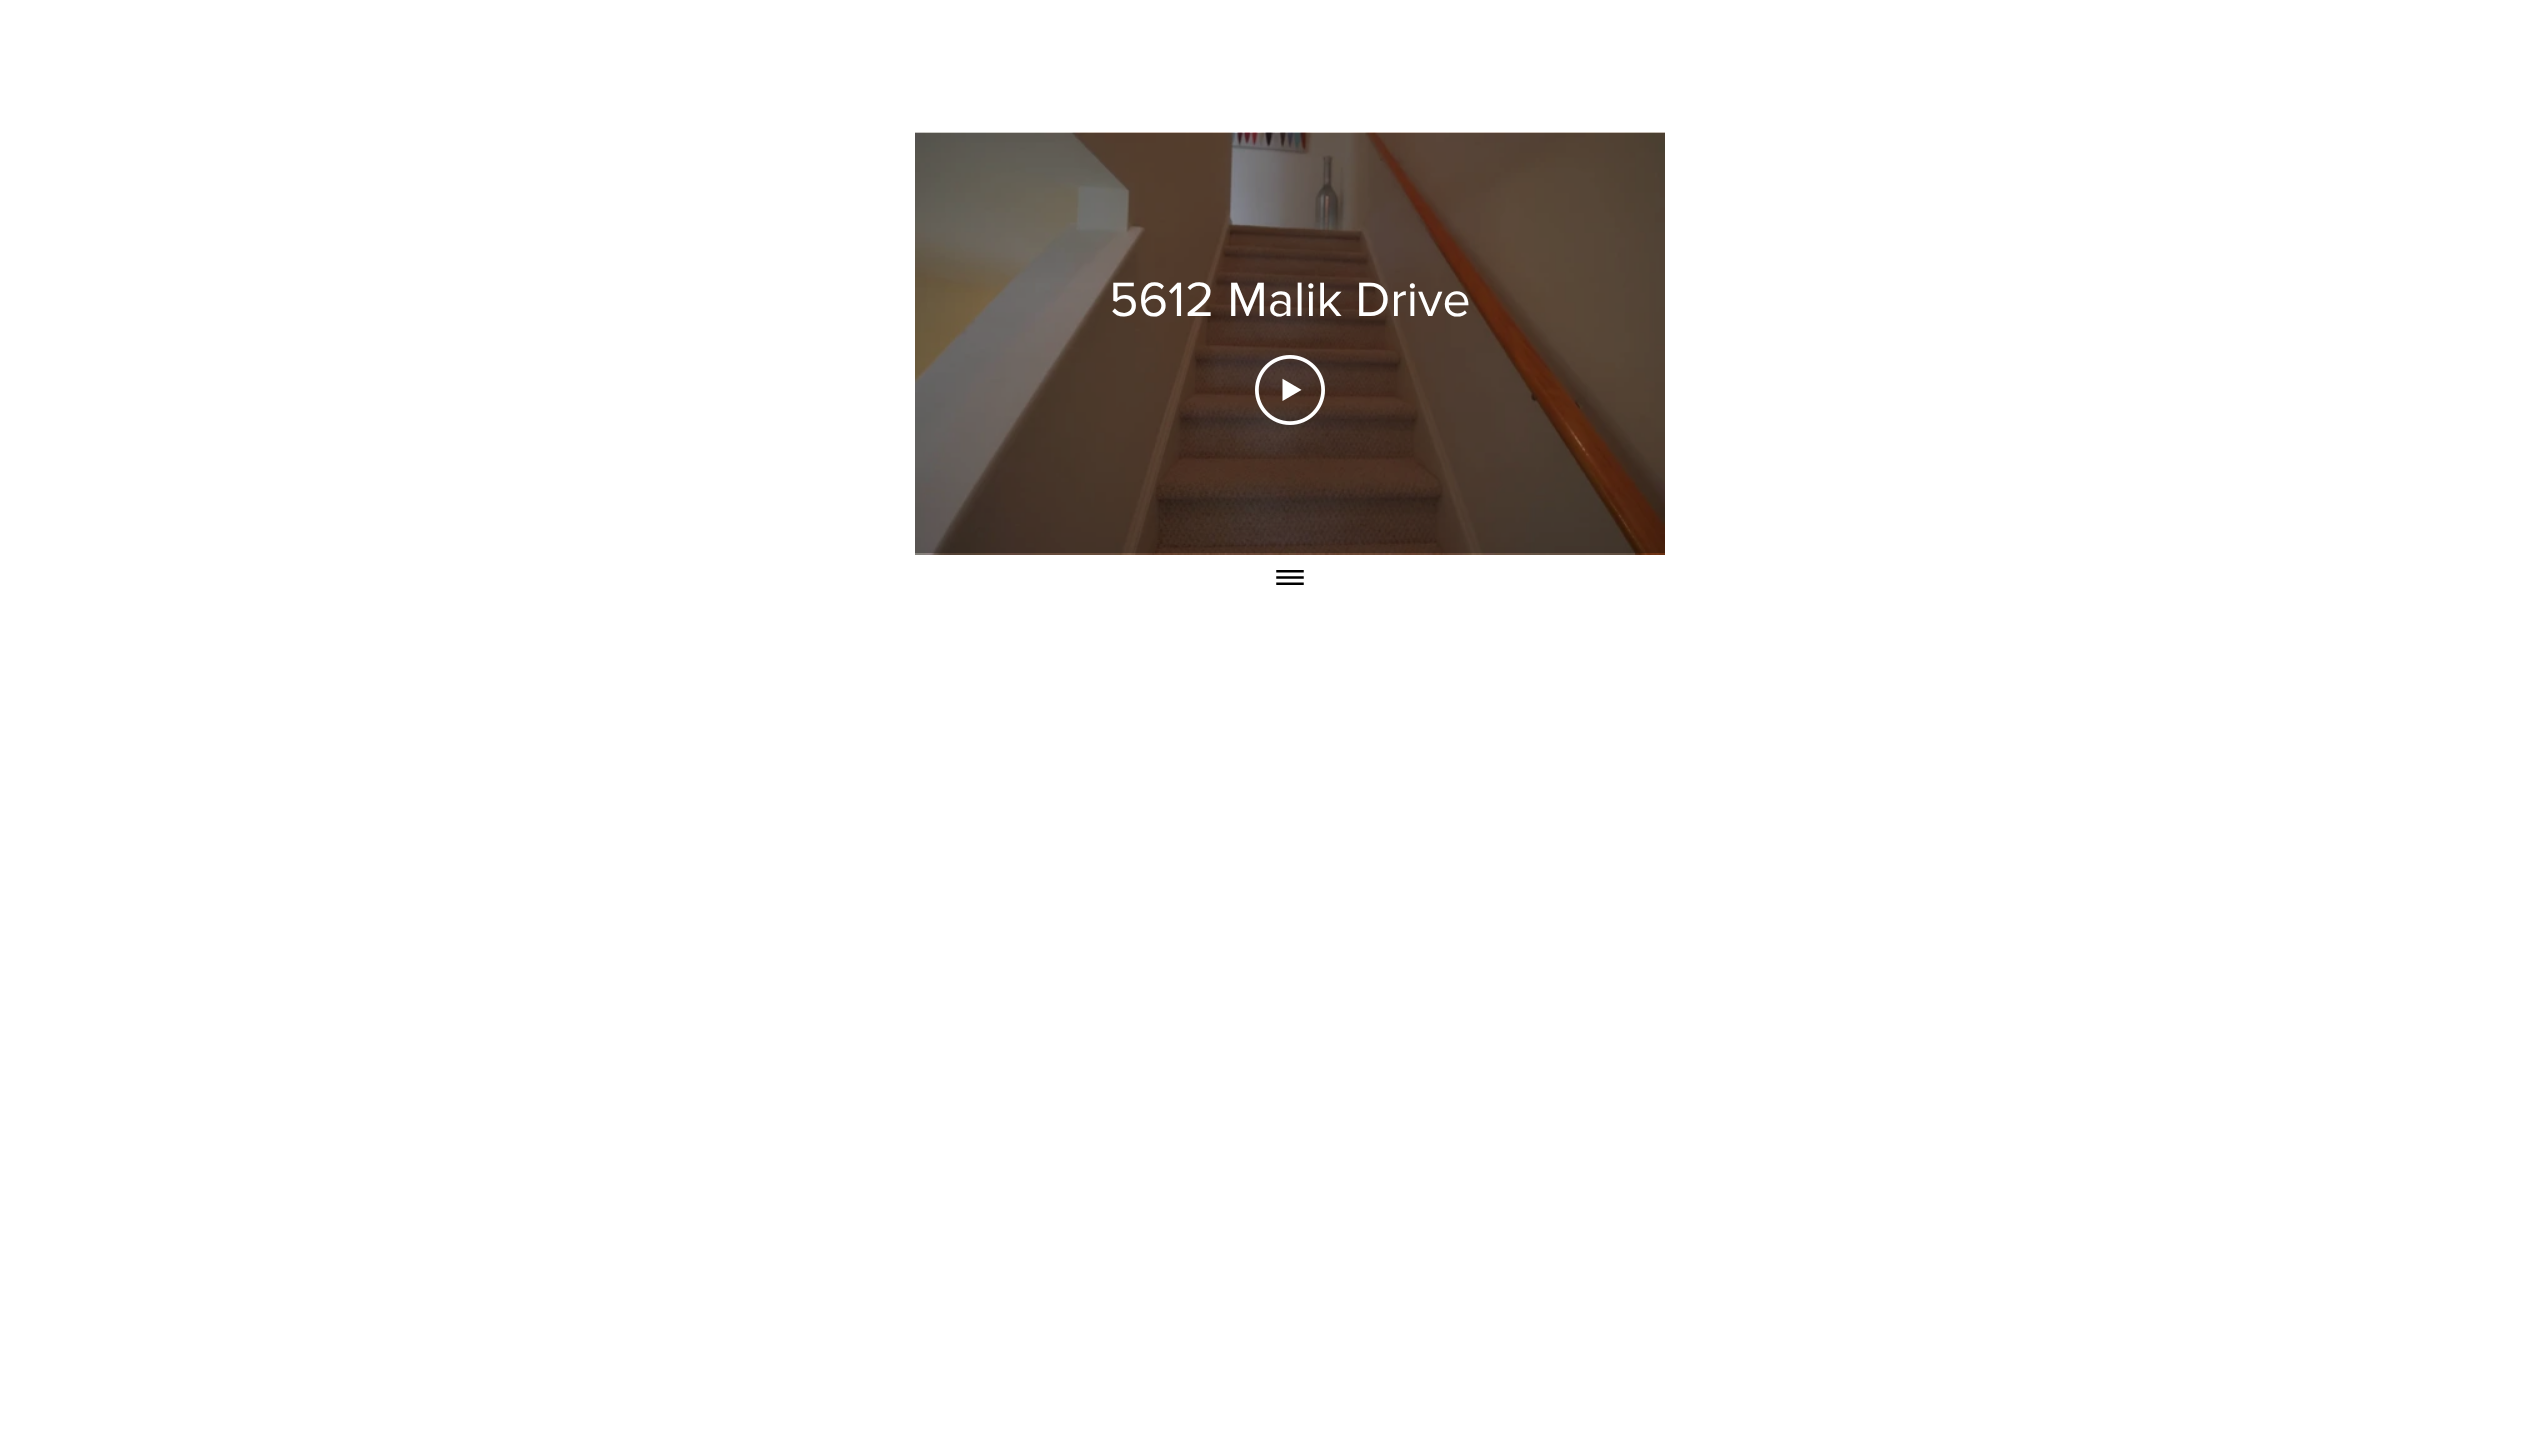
<?xml version="1.0" encoding="UTF-8"?>
<svg xmlns="http://www.w3.org/2000/svg" width="2530" height="1431">
    <rect width="100%" height="100%" fill="#FFFFFF"/>
    <image x="915" y="132" width="750" height="423" href="img_01.png"/>
    <image x="915" y="132" width="750" height="421" href="img_02.png"/>
    <text x="1109" y="316" font-family="'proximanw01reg'" font-size="50" fill="#FFFFFF">5612 Malik Drive</text>
    <image x="1255" y="355" width="70" height="70" href="img_03.png"/>
    <image x="1276" y="570" width="28" height="15" href="img_04.png"/>
</svg>
